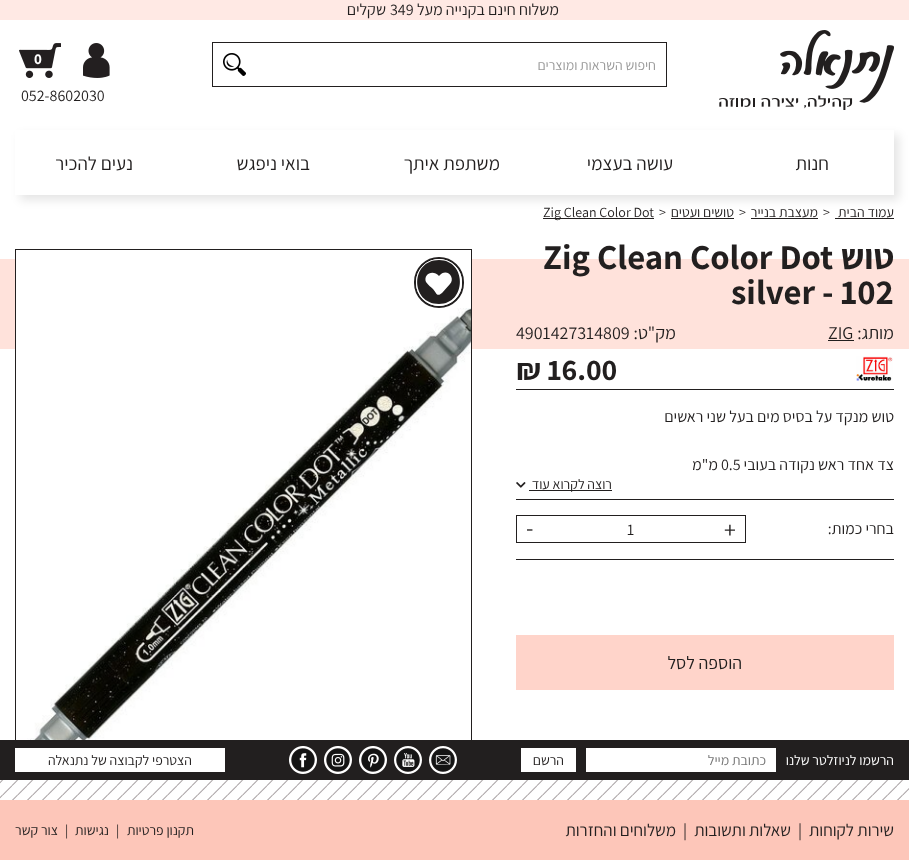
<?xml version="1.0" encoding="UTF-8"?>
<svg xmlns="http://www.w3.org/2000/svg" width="909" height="860">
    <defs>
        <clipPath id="clip1"><path d="M 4 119 H 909 V 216 H 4 Z M 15 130 H 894 V 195 H 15 Z" clip-rule="evenodd"/></clipPath>
        <filter id="blur1" x="-50%" y="-200%" width="200%" height="500%"><feGaussianBlur stdDeviation="5"/></filter>
    </defs>
    <rect width="100%" height="100%" fill="#FFFFFF"/>
    <rect x="0" y="0" width="909" height="20" fill="#FFE9E4"/>
    <text x="559" y="15" font-family="Assistant" font-size="16" direction="rtl" fill="#221F1F">משלוח חינם בקנייה מעל</text>
    <text x="390" y="15" font-family="Assistant" font-size="16" fill="#221F1F">349</text>
    <text x="386" y="15" font-family="Assistant" font-size="16" direction="rtl" fill="#221F1F">שקלים</text>
    <image x="719" y="30" width="175" height="80" href="img_01.png"/>
    <rect x="212.5" y="42.5" width="454" height="44" fill="none" stroke="#221F1F"/>
    <text x="656" y="70" font-family="Assistant" font-size="14" direction="rtl" fill="#999999">חיפוש השראות ומוצרים</text>
    <image x="223" y="53" width="23" height="23" href="img_02.png"/>
    <image x="83" y="43" width="27" height="35" href="img_03.png"/>
    <image x="19" y="43" width="42" height="35" href="img_04.png"/>
    <image x="34" y="54" width="8" height="11" href="img_05.png"/>
    <text x="21" y="101" font-family="Assistant" font-size="16" fill="#221F1F">052-8602030</text>
    <g clip-path="url(#clip1)">
        <rect x="20" y="135" width="879" height="65" fill="#000000" fill-opacity="0.1" filter="url(#blur1)"/>
    </g>
    <text x="829" y="170" font-family="Assistant" font-size="19" direction="rtl" fill="#221F1F">חנות</text>
    <text x="673" y="170" font-family="Assistant" font-size="19" direction="rtl" fill="#221F1F">עושה בעצמי</text>
    <text x="500" y="170" font-family="Assistant" font-size="19" direction="rtl" fill="#221F1F">משתפת איתך</text>
    <text x="310" y="170" font-family="Assistant" font-size="19" direction="rtl" fill="#221F1F">בואי ניפגש</text>
    <text x="133" y="170" font-family="Assistant" font-size="19" direction="rtl" fill="#221F1F">נעים להכיר</text>
    <text x="894" y="217" font-family="Assistant" font-size="14" direction="rtl" fill="#221F1F">עמוד הבית</text>
    <rect x="835" y="218" width="59" height="1" fill="#221F1F"/>
    <text x="823" y="217" font-family="Assistant" font-size="14" fill="#221F1F">&gt;</text>
    <text x="818" y="217" font-family="Assistant" font-size="14" direction="rtl" fill="#221F1F">מעצבת בנייר</text>
    <rect x="751" y="218" width="67" height="1" fill="#221F1F"/>
    <text x="739" y="217" font-family="Assistant" font-size="14" fill="#221F1F">&gt;</text>
    <text x="734" y="217" font-family="Assistant" font-size="14" direction="rtl" fill="#221F1F">טושים ועטים</text>
    <rect x="671" y="218" width="63" height="1" fill="#221F1F"/>
    <text x="659" y="217" font-family="Assistant" font-size="14" fill="#221F1F">&gt;</text>
    <rect x="543" y="218" width="111" height="1" fill="#221F1F"/>
    <text x="543" y="217" font-family="Assistant" font-size="14" fill="#221F1F">Zig Clean Color Dot</text>
    <rect x="0" y="259" width="909" height="90" fill="#FFE2DB"/>
    <text x="894" y="269" font-family="Assistant" font-size="35" font-weight="700" direction="rtl" fill="#221F1F">טוש</text>
    <text x="543" y="269" font-family="Assistant" font-size="35" font-weight="700" fill="#221F1F">Zig Clean Color Dot</text>
    <text x="731" y="304" font-family="Assistant" font-size="35" font-weight="700" fill="#221F1F">silver - 102</text>
    <text x="894" y="339" font-family="Assistant" font-size="18" direction="rtl" fill="#221F1F">מותג:</text>
    <text x="828" y="339" font-family="Assistant" font-size="18" fill="#221F1F">ZIG</text>
    <rect x="828" y="340" width="26" height="1" fill="#221F1F"/>
    <text x="676" y="339" font-family="Assistant" font-size="18" direction="rtl" fill="#221F1F">מק"ט:</text>
    <text x="516" y="339" font-family="Assistant" font-size="18" fill="#221F1F">4901427314809</text>
    <rect x="516" y="389" width="378" height="1" fill="#221F1F"/>
    <image x="856" y="356" width="37" height="25" href="img_06.png"/>
    <text x="516" y="380" font-family="Assistant" font-size="30" font-weight="700" fill="#221F1F">₪ 16.00</text>
    <rect x="516" y="499" width="378" height="1" fill="#221F1F"/>
    <text x="894" y="422" font-family="Assistant" font-size="16" direction="rtl" fill="#221F1F">טוש מנקד על בסיס מים בעל שני ראשים</text>
    <text x="894" y="470" font-family="Assistant" font-size="16" direction="rtl" fill="#221F1F">צד אחד ראש נקודה בעובי</text>
    <text x="721" y="470" font-family="Assistant" font-size="16" fill="#221F1F">0.5</text>
    <text x="718" y="470" font-family="Assistant" font-size="16" direction="rtl" fill="#221F1F">מ"מ</text>
    <rect x="529" y="490" width="83" height="1" fill="#221F1F"/>
    <text x="612" y="489" font-family="Assistant" font-size="14" direction="rtl" fill="#221F1F">רוצה לקרוא עוד</text>
    <image x="516" y="482" width="10" height="6" href="img_07.png"/>
    <rect x="516" y="559" width="378" height="1" fill="#221F1F"/>
    <text x="894" y="534" font-family="Assistant" font-size="16" direction="rtl" fill="#221F1F">בחרי כמות:</text>
    <rect x="516.5" y="515.5" width="229" height="27" fill="none" stroke="#221F1F"/>
    <text x="724" y="538" font-family="Assistant" font-size="24" fill="#221F1F">+</text>
    <text x="627" y="535" font-family="Assistant" font-size="16" fill="#221F1F">1</text>
    <text x="526" y="536" font-family="Assistant" font-size="24" fill="#221F1F">-</text>
    <rect x="516" y="635" width="378" height="55" fill="#FFD4CA"/>
    <text x="742" y="669" font-family="Assistant" font-size="18" direction="rtl" fill="#221F1F">הוספה לסל</text>
    <rect x="16" y="259" width="455" height="50" fill="#FFFFFF"/>
    <rect x="15.5" y="249.5" width="456" height="599" fill="none" stroke="#221F1F"/>
    <image x="16" y="308" width="455" height="432" href="img_08.png"/>
    <rect x="415" y="258" width="48" height="49" rx="24" fill="none" stroke="#221F1F" stroke-width="2"/>
    <rect x="416.5" y="259.5" width="45" height="46" rx="22.5" fill="#FFFFFF" stroke="#FFFFFF"/>
    <path d="M 439 260 C 410 260 410 304 439 304 C 467 304 467 260 439 260 Z M 450 284 L 442 293 C 437 297 437 294 433 289 C 431 287 428 285 426 282 C 423 274 433 269 439 276 C 446 267 456 277 450 284 Z" fill="#221F1F"/>
    <rect x="0" y="740" width="909" height="40" fill="#221F1F"/>
    <text x="894" y="765" font-family="Assistant" font-size="14" direction="rtl" fill="#FFFFFF">הרשמו לניוזלטר שלנו</text>
    <rect x="586" y="748" width="190" height="24" fill="#FFFFFF"/>
    <text x="766" y="765" font-family="Assistant" font-size="14" direction="rtl" fill="#757575">כתובת מייל</text>
    <rect x="521" y="748" width="55" height="24" fill="#FFFFFF"/>
    <text x="564" y="765" font-family="Assistant" font-size="14" direction="rtl" fill="#221F1F">הרשם</text>
    <image x="429" y="746" width="28" height="28" href="img_09.png"/>
    <image x="394" y="746" width="28" height="28" href="img_10.png"/>
    <image x="359" y="746" width="28" height="28" href="img_11.png"/>
    <image x="324" y="746" width="28" height="28" href="img_12.png"/>
    <image x="289" y="746" width="28" height="28" href="img_13.png"/>
    <rect x="15" y="748" width="210" height="24" fill="#FFFFFF"/>
    <text x="192" y="765" font-family="Assistant" font-size="14" direction="rtl" fill="#221F1F">הצטרפי לקבוצה של נתנאלה</text>
    <image x="0" y="780" width="909" height="20" href="img_14.png"/>
    <rect x="0" y="800" width="909" height="60" fill="#FDC6B9"/>
    <text x="894" y="836" font-family="Assistant" font-size="17" direction="rtl" fill="#221F1F">שירות לקוחות</text>
    <text x="798" y="836" font-family="Assistant" font-size="17" fill="#221F1F">|</text>
    <text x="791" y="836" font-family="Assistant" font-size="17" direction="rtl" fill="#221F1F">שאלות ותשובות</text>
    <text x="683" y="836" font-family="Assistant" font-size="17" fill="#221F1F">|</text>
    <text x="676" y="836" font-family="Assistant" font-size="17" direction="rtl" fill="#221F1F">משלוחים והחזרות</text>
    <text x="194" y="835" font-family="Assistant" font-size="14" direction="rtl" fill="#221F1F">תקנון פרטיות</text>
    <text x="116" y="835" font-family="Assistant" font-size="14" fill="#221F1F">|</text>
    <text x="109" y="835" font-family="Assistant" font-size="14" direction="rtl" fill="#221F1F">נגישות</text>
    <text x="65" y="835" font-family="Assistant" font-size="14" fill="#221F1F">|</text>
    <text x="58" y="835" font-family="Assistant" font-size="14" direction="rtl" fill="#221F1F">צור קשר</text>
</svg>
